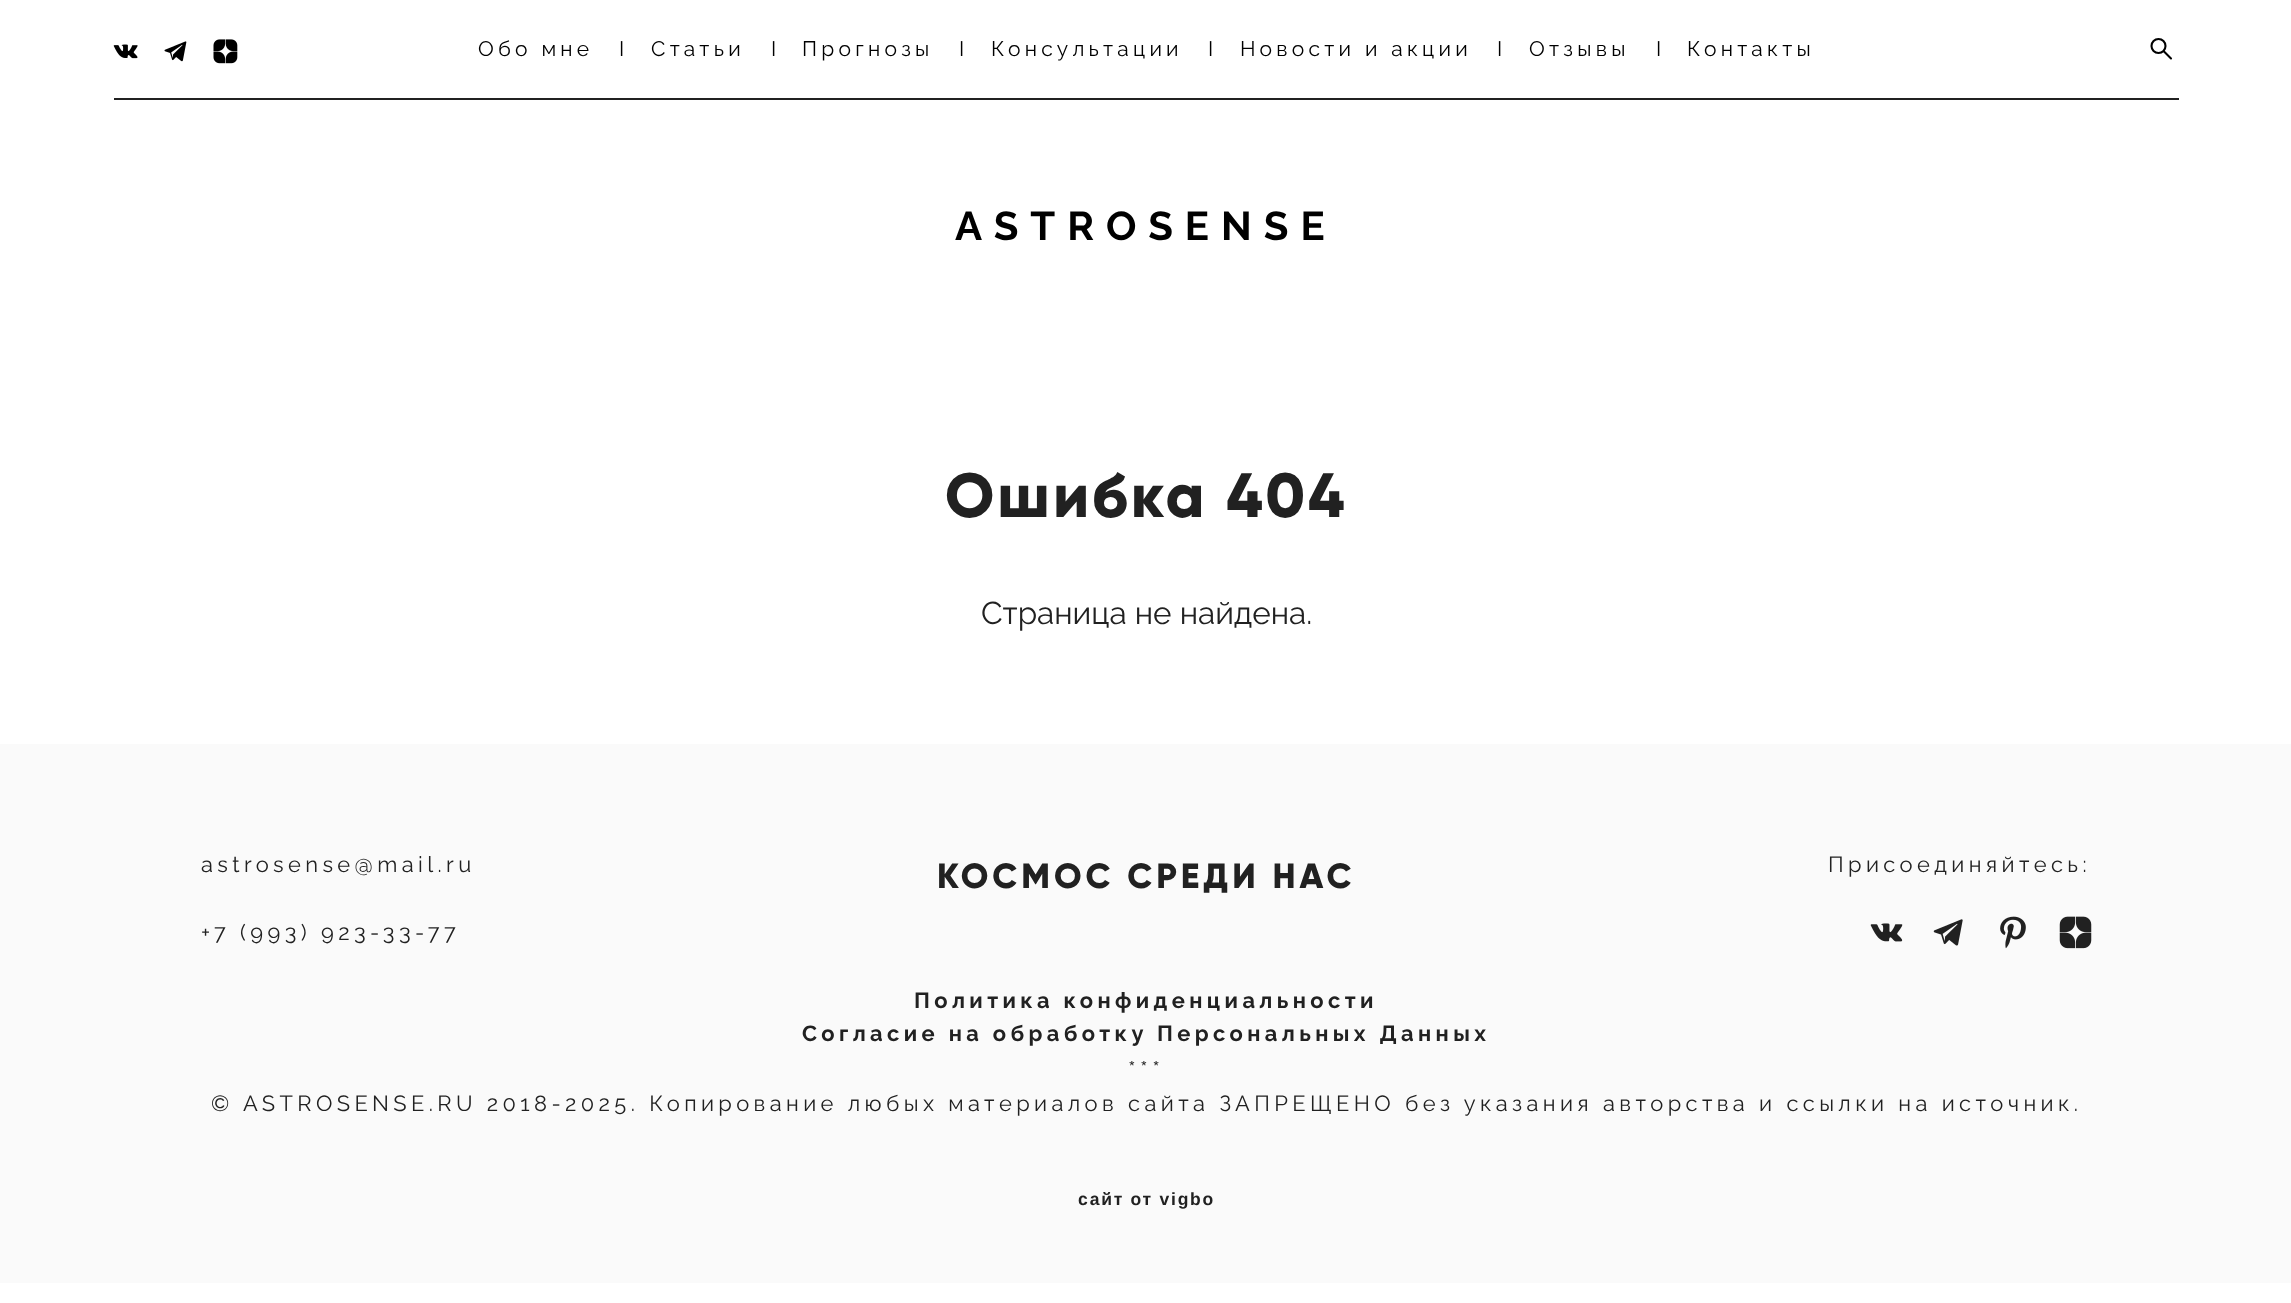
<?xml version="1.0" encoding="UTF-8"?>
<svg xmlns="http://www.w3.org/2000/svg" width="2291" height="1303">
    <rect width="100%" height="100%" fill="#FFFFFF"/>
    <image x="113" y="44" width="25" height="15" href="img_01.png"/>
    <image x="164" y="41" width="23" height="21" href="img_02.png"/>
    <image x="213" y="39" width="25" height="25" href="img_03.png"/>
    <text x="478" y="56" font-family="Raleway" font-size="21" letter-spacing="4.25" fill="#000000">Обо мне</text>
    <text x="619" y="56" font-family="Raleway" font-size="21" fill="#000000">I</text>
    <text x="651" y="56" font-family="Raleway" font-size="21" letter-spacing="4.25" fill="#000000">Статьи</text>
    <text x="771" y="56" font-family="Raleway" font-size="21" fill="#000000">I</text>
    <text x="802" y="56" font-family="Raleway" font-size="21" letter-spacing="4.25" fill="#000000">Прогнозы</text>
    <text x="959" y="56" font-family="Raleway" font-size="21" fill="#000000">I</text>
    <text x="991" y="56" font-family="Raleway" font-size="21" letter-spacing="4.25" fill="#000000">Консультации</text>
    <text x="1208" y="56" font-family="Raleway" font-size="21" fill="#000000">I</text>
    <text x="1240" y="56" font-family="Raleway" font-size="21" letter-spacing="4.25" fill="#000000">Новости и акции</text>
    <text x="1497" y="56" font-family="Raleway" font-size="21" fill="#000000">I</text>
    <text x="1529" y="56" font-family="Raleway" font-size="21" letter-spacing="4.25" fill="#000000">Отзывы</text>
    <text x="1656" y="56" font-family="Raleway" font-size="21" fill="#000000">I</text>
    <text x="1687" y="56" font-family="Raleway" font-size="21" letter-spacing="4.25" fill="#000000">Контакты</text>
    <circle cx="2158.5" cy="46" r="7" fill="none" stroke="#000000" stroke-width="2.1"/>
    <path d="M 2164 51.5 L 2171 58.5" fill="none" stroke="#000000" stroke-width="2.1" stroke-linecap="round" stroke-linejoin="round"/>
    <rect x="114" y="98" width="2065" height="2" fill="#212121"/>
    <text x="955" y="240" font-family="Raleway" font-size="40.25" font-weight="700" letter-spacing="12" fill="#000000">ASTROSENSE</text>
    <text x="945" y="517" font-family="Gilroy" font-size="62.5" font-weight="800" letter-spacing="3.1" fill="#212121">Ошибка 404</text>
    <text x="981" y="624" font-family="Raleway" font-size="31.5" fill="#212121">Страница не найдена.</text>
    <rect x="0" y="744" width="2291" height="539" fill="#FAFAFA"/>
    <text x="201" y="872" font-family="Raleway" font-size="21.9" letter-spacing="4.38" fill="#212121">astrosense@mail.ru</text>
    <text x="201" y="940" font-family="Raleway" font-size="21.9" letter-spacing="4.38" fill="#212121">+7 (993) 923-33-77</text>
    <text x="937" y="888" font-family="Gilroy" font-size="35" font-weight="800" letter-spacing="4" fill="#212121">КОСМОС СРЕДИ НАС</text>
    <text x="1828" y="872" font-family="Raleway" font-size="21.9" letter-spacing="4.38" fill="#212121">Присоединяйтесь:</text>
    <image x="1870" y="923" width="33" height="19" href="img_04.png"/>
    <image x="1933" y="919" width="30" height="27" href="img_05.png"/>
    <image x="2000" y="916" width="26" height="33" href="img_06.png"/>
    <image x="2059" y="916" width="33" height="33" href="img_07.png"/>
    <text x="914" y="1008" font-family="Raleway" font-size="21.9" font-weight="700" letter-spacing="4.38" fill="#212121">Политика конфиденциальности</text>
    <text x="802" y="1041" font-family="Raleway" font-size="21.9" font-weight="700" letter-spacing="4.38" fill="#212121">Согласие на обработку Персональных Данных</text>
    <text x="1128" y="1078" font-family="Raleway" font-size="24" letter-spacing="4.38" fill="#212121">***</text>
    <text x="211" y="1111" font-family="Raleway" font-size="21.9" letter-spacing="4.38" fill="#212121">© ASTROSENSE.RU 2018-2025. Копирование любых материалов сайта ЗАПРЕЩЕНО без указания авторства и ссылки на источник.</text>
    <text x="1078" y="1205" font-family="Liberation Sans" font-size="17.5" font-weight="700" letter-spacing="1.75" fill="#212121">сайт от vigbo</text>
</svg>
